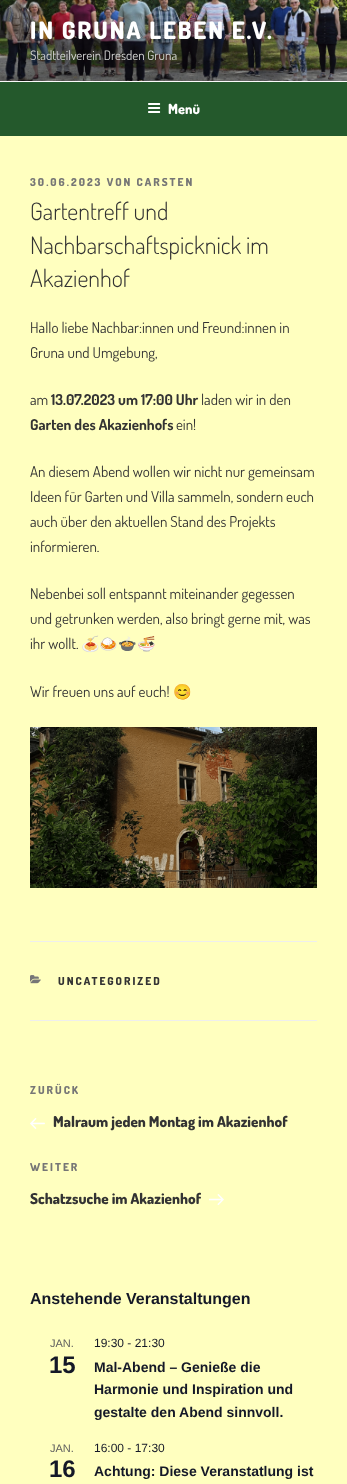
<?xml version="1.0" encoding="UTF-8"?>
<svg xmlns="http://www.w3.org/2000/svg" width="347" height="1484">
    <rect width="100%" height="100%" fill="#FAFAFA"/>
    <image x="0" y="0" width="347" height="81" href="img_01.png"/>
    <text x="30" y="39" font-family="Dosis" font-size="24" font-weight="800" letter-spacing="1.9" fill="#FFFFFF">IN GRUNA LEBEN E.V.</text>
    <text x="30" y="60" font-family="Dosis" font-size="13" fill="#D4D5D4">Stadtteilverein Dresden Gruna</text>
    <rect x="0" y="82" width="347" height="54" fill="#24592C"/>
    <image x="148" y="103" width="13" height="10" href="img_02.png"/>
    <text x="168" y="114" font-family="Dosis" font-size="14" font-weight="800" fill="#FFFFFF">Menü</text>
    <rect x="0" y="136" width="347" height="1348" fill="#FFFFBF"/>
    <text x="30" y="186" font-family="Dosis" font-size="11" font-weight="800" letter-spacing="2" fill="#767676">30.06.2023 VON CARSTEN</text>
    <text font-family="Dosis" font-size="24" font-weight="300" fill="#333333">
        <tspan x="30" y="220">Gartentreff und</tspan>
        <tspan x="30" y="254">Nachbarschaftspicknick im</tspan>
        <tspan x="30" y="287">Akazienhof</tspan>
    </text>
    <text font-family="Dosis" font-size="15" fill="#333333">
        <tspan x="30" y="333">Hallo liebe Nachbar:innen und Freund:innen in</tspan>
        <tspan x="30" y="358">Gruna und Umgebung,</tspan>
    </text>
    <text x="30" y="405" font-family="Dosis" font-size="15" fill="#333333">am</text>
    <text x="51" y="405" font-family="Dosis" font-size="15" font-weight="700" fill="#333333">13.07.2023 um 17:00 Uhr</text>
    <text x="201" y="405" font-family="Dosis" font-size="15" fill="#333333">laden wir in den</text>
    <text x="30" y="430" font-family="Dosis" font-size="15" font-weight="700" fill="#333333">Garten des Akazienhofs</text>
    <text x="176" y="430" font-family="Dosis" font-size="15" fill="#333333">ein!</text>
    <text font-family="Dosis" font-size="15" fill="#333333">
        <tspan x="30" y="477">An diesem Abend wollen wir nicht nur gemeinsam</tspan>
        <tspan x="30" y="502">Ideen für Garten und Villa sammeln, sondern euch</tspan>
        <tspan x="30" y="527">auch über den aktuellen Stand des Projekts</tspan>
        <tspan x="30" y="552">informieren.</tspan>
    </text>
    <text font-family="Dosis" font-size="15" fill="#333333">
        <tspan x="30" y="599">Nebenbei soll entspannt miteinander gegessen</tspan>
        <tspan x="30" y="624">und getrunken werden, also bringt gerne mit, was</tspan>
        <tspan x="30" y="649">ihr wollt.</tspan>
    </text>
    <text x="81" y="649" font-family="Noto Color Emoji" font-size="15" fill="#333333">🍝🍛🍲🍜</text>
    <text x="30" y="697" font-family="Dosis" font-size="15" fill="#333333">Wir freuen uns auf euch!</text>
    <text x="173" y="697" font-family="Noto Color Emoji" font-size="15" fill="#333333">😊</text>
    <image x="30" y="727" width="287" height="161" href="img_03.png"/>
    <rect x="30" y="941" width="287" height="1" fill="#EEEEEE"/>
    <rect x="30" y="1020" width="287" height="1" fill="#EEEEEE"/>
    <image x="30" y="975" width="11" height="9" href="img_04.png"/>
    <text x="58" y="985" font-family="Dosis" font-size="11" font-weight="800" letter-spacing="2" fill="#333333">UNCATEGORIZED</text>
    <text x="30" y="1094" font-family="Dosis" font-size="11" font-weight="800" letter-spacing="2" fill="#767676">ZURÜCK</text>
    <image x="30" y="1118" width="15" height="11" href="img_05.png"/>
    <text x="53" y="1127" font-family="Dosis" font-size="15" font-weight="800" fill="#333333">Malraum jeden Montag im Akazienhof</text>
    <text x="30" y="1171" font-family="Dosis" font-size="11" font-weight="800" letter-spacing="2" fill="#767676">WEITER</text>
    <text x="30" y="1204" font-family="Dosis" font-size="15" font-weight="800" fill="#333333">Schatzsuche im Akazienhof</text>
    <image x="209" y="1194" width="15" height="11" href="img_06.png"/>
    <text x="30" y="1304" font-family="Liberation Sans" font-size="16" font-weight="700" fill="#141827">Anstehende Veranstaltungen</text>
    <text x="50" y="1347" font-family="Liberation Sans" font-size="11" fill="#5D5D5D">JAN.</text>
    <text x="49" y="1373" font-family="Liberation Sans" font-size="24" font-weight="700" fill="#141827">15</text>
    <text x="94" y="1347" font-family="Liberation Sans" font-size="12" fill="#141827">19:30 - 21:30</text>
    <text font-family="Liberation Sans" font-size="14" font-weight="700" fill="#141827">
        <tspan x="94" y="1372">Mal-Abend – Genieße die</tspan>
        <tspan x="94" y="1394">Harmonie und Inspiration und</tspan>
        <tspan x="94" y="1417">gestalte den Abend sinnvoll.</tspan>
    </text>
    <text x="50" y="1452" font-family="Liberation Sans" font-size="11" fill="#5D5D5D">JAN.</text>
    <text x="49" y="1477" font-family="Liberation Sans" font-size="24" font-weight="700" fill="#141827">16</text>
    <text x="94" y="1452" font-family="Liberation Sans" font-size="12" fill="#141827">16:00 - 17:30</text>
    <text x="94" y="1476" font-family="Liberation Sans" font-size="14" font-weight="700" fill="#141827">Achtung: Diese Veranstatlung ist</text>
</svg>
